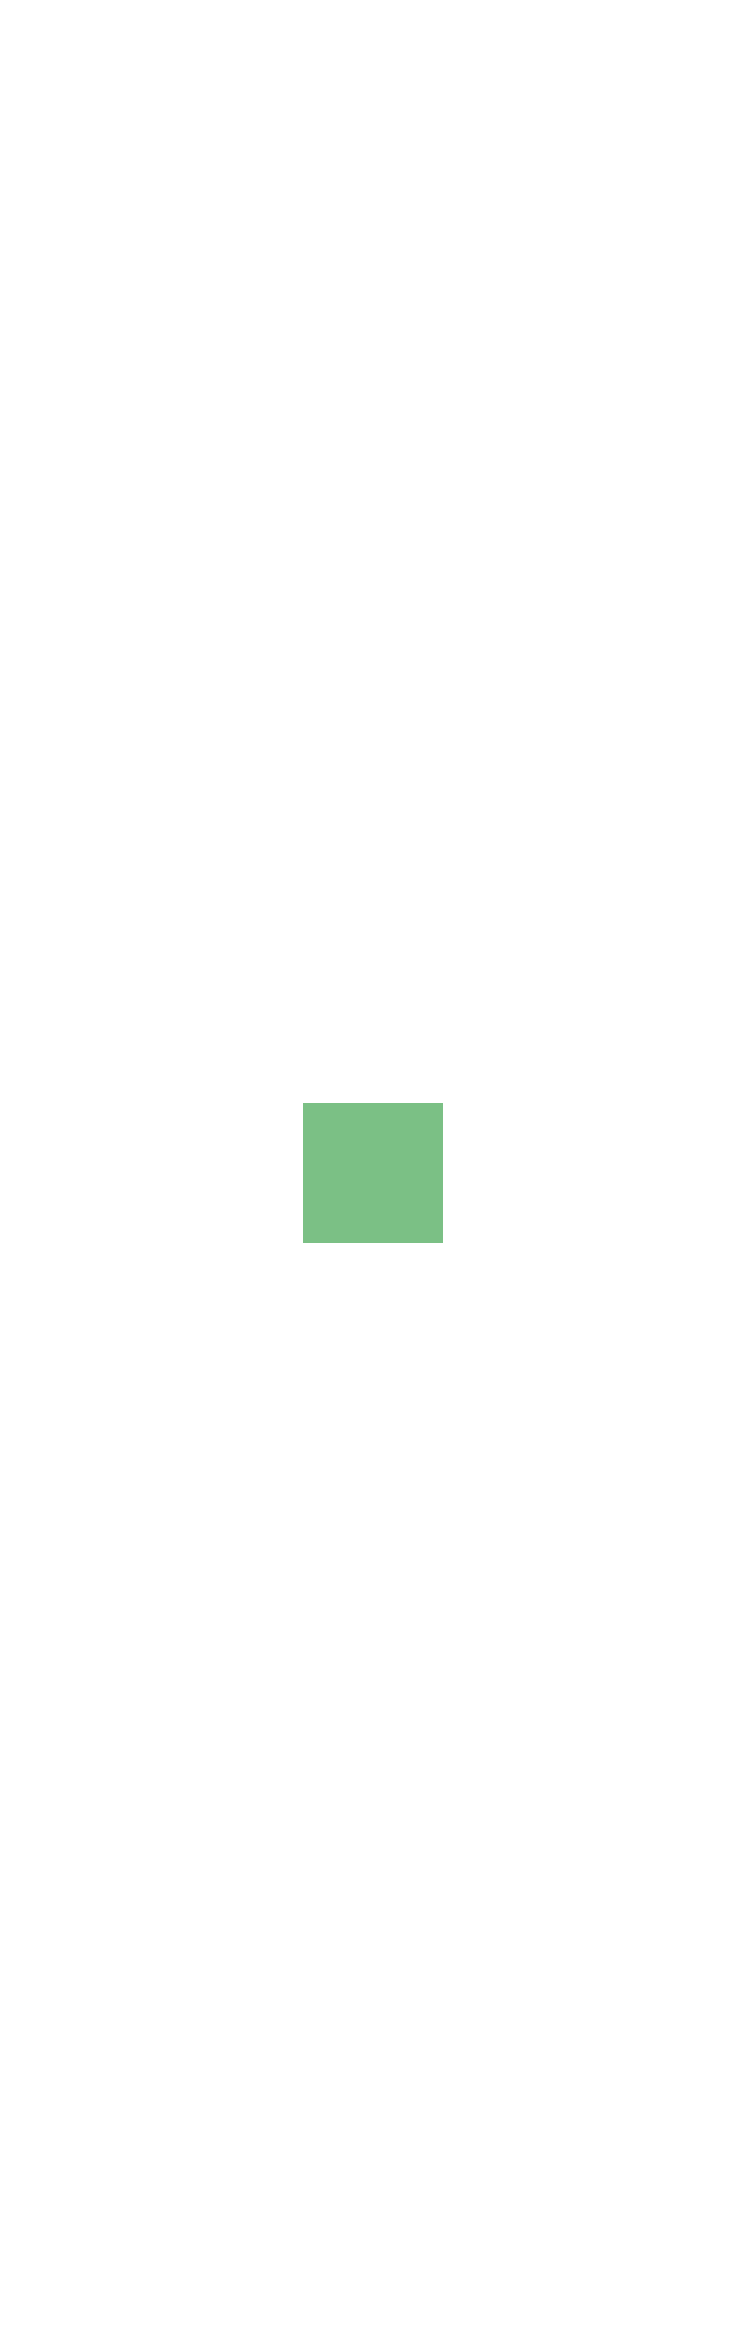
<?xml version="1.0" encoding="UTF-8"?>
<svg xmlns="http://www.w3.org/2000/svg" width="743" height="2344">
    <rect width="100%" height="100%" fill="#FFFFFF"/>
    <rect x="303" y="1103" width="140" height="140" fill="#7BC085"/>
</svg>
